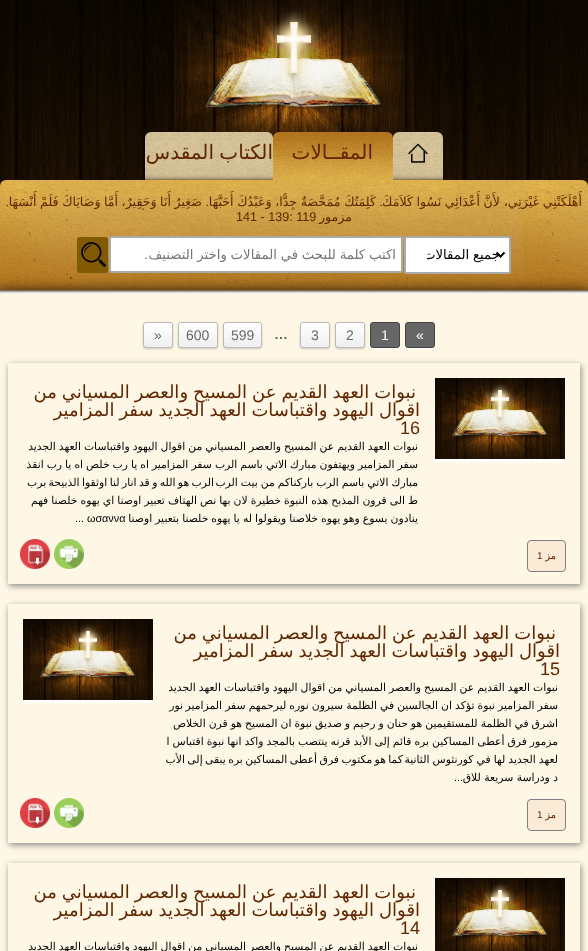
<?xml version="1.0" encoding="UTF-8"?>
<svg xmlns="http://www.w3.org/2000/svg" width="588" height="951">
    <defs>
        <clipPath id="clip1"><rect x="427" y="246" width="73" height="17"/></clipPath>
        <clipPath id="clip2"><rect x="116" y="247" width="280" height="15"/></clipPath>
        <filter id="blur1" x="-50%" y="-200%" width="200%" height="500%"><feGaussianBlur stdDeviation="7.5"/></filter>
        <filter id="blur2" x="-50%" y="-200%" width="200%" height="500%"><feGaussianBlur stdDeviation="1"/></filter>
        <clipPath id="clip3"><rect x="335" y="322" width="30" height="26" rx="3"/></clipPath>
        <linearGradient id="g1" gradientUnits="userSpaceOnUse" x1="350" y1="323" x2="350" y2="347"><stop offset="0" stop-color="#FFFFFF"/><stop offset="1" stop-color="#EFEFEF"/></linearGradient>
        <clipPath id="clip4"><rect x="300" y="322" width="30" height="26" rx="3"/></clipPath>
        <linearGradient id="g2" gradientUnits="userSpaceOnUse" x1="315" y1="323" x2="315" y2="347"><stop offset="0" stop-color="#FFFFFF"/><stop offset="1" stop-color="#EFEFEF"/></linearGradient>
        <clipPath id="clip5"><rect x="223" y="322" width="39" height="26" rx="3"/></clipPath>
        <linearGradient id="g3" gradientUnits="userSpaceOnUse" x1="243" y1="323" x2="243" y2="347"><stop offset="0" stop-color="#FFFFFF"/><stop offset="1" stop-color="#EFEFEF"/></linearGradient>
        <clipPath id="clip6"><rect x="178" y="322" width="40" height="26" rx="3"/></clipPath>
        <linearGradient id="g4" gradientUnits="userSpaceOnUse" x1="198" y1="323" x2="198" y2="347"><stop offset="0" stop-color="#FFFFFF"/><stop offset="1" stop-color="#EFEFEF"/></linearGradient>
        <clipPath id="clip7"><rect x="143" y="322" width="30" height="26" rx="3"/></clipPath>
        <linearGradient id="g5" gradientUnits="userSpaceOnUse" x1="158" y1="323" x2="158" y2="347"><stop offset="0" stop-color="#FFFFFF"/><stop offset="1" stop-color="#EFEFEF"/></linearGradient>
        <clipPath id="clip8"><path d="M 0 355 H 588 V 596 H 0 Z M 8 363 H 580 V 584 H 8 Z" clip-rule="evenodd"/></clipPath>
        <filter id="blur3" x="-50%" y="-200%" width="200%" height="500%"><feGaussianBlur stdDeviation="3"/></filter>
        <clipPath id="clip9"><path d="M 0 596 H 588 V 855 H 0 Z M 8 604 H 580 V 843 H 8 Z" clip-rule="evenodd"/></clipPath>
        <clipPath id="clip10"><path d="M 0 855 H 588 V 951 H 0 Z M 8 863 H 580 V 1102 H 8 Z" clip-rule="evenodd"/></clipPath>
    </defs>
    <rect width="100%" height="100%" fill="#FFFFFF"/>
    <image x="0" y="0" width="588" height="186" href="img_01.png"/>
    <image x="0" y="0" width="588" height="186" href="img_02.png"/>
    <image x="174" y="0" width="240" height="138" href="img_03.png"/>
    <image x="393" y="132" width="50" height="48" href="img_04.png"/>
    <image x="408" y="143" width="20" height="20" href="img_05.png"/>
    <image x="273" y="132" width="120" height="48" href="img_06.png"/>
    <text x="373" y="159" font-family="DejaVu Sans" font-size="20" direction="rtl" fill="#602600">المقــالات</text>
    <image x="145" y="132" width="128" height="48" href="img_07.png"/>
    <text x="273" y="159" word-spacing="-1" font-family="DejaVu Sans" font-size="20" direction="rtl" fill="#602600">الكتاب المقدس</text>
    <image x="0" y="180" width="588" height="110" href="img_08.png"/>
    <text x="582" y="206" word-spacing="-0.4" font-family="DejaVu Sans" font-size="12.6" direction="rtl" fill="#602600">أَهْلَكَتْنِي غَيْرَتِي، لأَنَّ أَعْدَائِي نَسُوا كَلاَمَكَ</text>
    <text x="383" y="206" font-family="Liberation Sans" font-size="12.6" direction="rtl" fill="#602600">.</text>
    <text x="376" y="206" word-spacing="-0.4" font-family="DejaVu Sans" font-size="12.6" direction="rtl" fill="#602600">كَلِمَتُكَ مُمَحَّصَةٌ جِدًّا، وَعَبْدُكَ أَحَبَّهَا</text>
    <text x="209" y="206" font-family="Liberation Sans" font-size="12.6" direction="rtl" fill="#602600">.</text>
    <text x="202" y="206" word-spacing="-0.5" font-family="DejaVu Sans" font-size="12.6" direction="rtl" fill="#602600">صَغِيرٌ أَنَا وَحَقِيرٌ، أَمَّا وَصَايَاكَ فَلَمْ أَنْسَهَا</text>
    <text x="9" y="206" font-family="Liberation Sans" font-size="12.6" direction="rtl" fill="#602600">.</text>
    <text x="352" y="221" font-family="DejaVu Sans" font-size="12.6" direction="rtl" fill="#602600">مزمور</text>
    <text x="236" y="221" font-family="Liberation Sans" font-size="12.6" fill="#602600">141 - 139: 119</text>
    <rect x="405" y="237" width="105" height="36" rx="1.5" fill="#FFFFFF" stroke="#AAAAAA" stroke-width="2"/>
    <path d="M 496.5 252.5 L 500.5 256.5 L 504.5 252.5" fill="none" stroke="#000000" stroke-width="2"/>
    <g clip-path="url(#clip1)">
        <text x="500" y="259" word-spacing="-0.5" font-family="DejaVu Sans" font-size="13.3" direction="rtl" fill="#000000">جميع المقالات</text>
    </g>
    <rect x="110" y="237" width="292" height="35" rx="1.5" fill="#FFFFFF" stroke="#AAAAAA" stroke-width="2"/>
    <g clip-path="url(#clip2)">
        <text x="396" y="259" word-spacing="-0.5" font-family="DejaVu Sans" font-size="13.3" direction="rtl" fill="#757575">اكتب كلمة للبحث في المقالات واختر التصنيف</text>
    </g>
    <text x="148" y="259" font-family="Liberation Sans" font-size="13.3" direction="rtl" fill="#757575">.</text>
    <rect x="77" y="237" width="31" height="36" rx="3" fill="#825A03"/>
    <image x="81" y="242" width="25" height="25" href="img_09.png"/>
    <rect x="-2" y="292" width="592" height="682" fill="#000000" filter="url(#blur1)"/>
    <rect x="0" y="294" width="588" height="657" fill="#FFF7E5"/>
    <image x="0" y="290" width="588" height="4" href="img_10.png"/>
    <path d="M 405 345 C 405 349.5 408 349 412 349 H 428 C 432 349 435 349.5 435 345 C 435 346.5 433.5 348 432 348 H 408 C 406.5 348 405 346.5 405 345 Z" fill="#FFFFFF"/>
    <rect x="405.5" y="322.5" width="29" height="25" rx="2.5" fill="#666666" stroke="#444444"/>
    <text x="416" y="340" font-family="Liberation Sans" font-size="14" fill="#FFFFFF">«</text>
    <path d="M 370 345 C 370 349.5 373 349 377 349 H 393 C 397 349 400 349.5 400 345 C 400 346.5 398.5 348 397 348 H 373 C 371.5 348 370 346.5 370 345 Z" fill="#FFFFFF"/>
    <rect x="370.5" y="322.5" width="29" height="25" rx="2.5" fill="#666666" stroke="#444444"/>
    <text x="381" y="340" font-family="Liberation Sans" font-size="14" fill="#FFFFFF">1</text>
    <rect x="335" y="323" width="30" height="26" rx="3" fill="#000000" fill-opacity="0.2" filter="url(#blur2)"/>
    <g clip-path="url(#clip3)">
        <rect x="335" y="323" width="30" height="24" fill="url(#g1)"/>
    </g>
    <rect x="335.5" y="322.5" width="29" height="25" rx="2.5" fill="none" stroke="#BBBBBB"/>
    <text x="346" y="340" font-family="Liberation Sans" font-size="14" fill="#666666">2</text>
    <rect x="300" y="323" width="30" height="26" rx="3" fill="#000000" fill-opacity="0.2" filter="url(#blur2)"/>
    <g clip-path="url(#clip4)">
        <rect x="300" y="323" width="30" height="24" fill="url(#g2)"/>
    </g>
    <rect x="300.5" y="322.5" width="29" height="25" rx="2.5" fill="none" stroke="#BBBBBB"/>
    <text x="311" y="340" font-family="Liberation Sans" font-size="14" fill="#666666">3</text>
    <text x="274" y="339" font-family="Liberation Sans" font-size="14" font-weight="700" fill="#666666">…</text>
    <rect x="223" y="323" width="39" height="26" rx="3" fill="#000000" fill-opacity="0.2" filter="url(#blur2)"/>
    <g clip-path="url(#clip5)">
        <rect x="223" y="323" width="39" height="24" fill="url(#g3)"/>
    </g>
    <rect x="223.5" y="322.5" width="38" height="25" rx="2.5" fill="none" stroke="#BBBBBB"/>
    <text x="231" y="340" font-family="Liberation Sans" font-size="14" fill="#666666">599</text>
    <rect x="178" y="323" width="40" height="26" rx="3" fill="#000000" fill-opacity="0.2" filter="url(#blur2)"/>
    <g clip-path="url(#clip6)">
        <rect x="178" y="323" width="40" height="24" fill="url(#g4)"/>
    </g>
    <rect x="178.5" y="322.5" width="39" height="25" rx="2.5" fill="none" stroke="#BBBBBB"/>
    <text x="186" y="340" font-family="Liberation Sans" font-size="14" fill="#666666">600</text>
    <rect x="143" y="323" width="30" height="26" rx="3" fill="#000000" fill-opacity="0.2" filter="url(#blur2)"/>
    <g clip-path="url(#clip7)">
        <rect x="143" y="323" width="30" height="24" fill="url(#g5)"/>
    </g>
    <rect x="143.5" y="322.5" width="29" height="25" rx="2.5" fill="none" stroke="#BBBBBB"/>
    <text x="154" y="340" font-family="Liberation Sans" font-size="14" fill="#666666">»</text>
    <g clip-path="url(#clip8)">
        <rect x="9" y="365" width="572" height="221" fill="#888888" filter="url(#blur3)"/>
    </g>
    <rect x="435" y="459" width="130" height="3" fill="#FFFFFF"/>
    <image x="435" y="378" width="130" height="81" href="img_11.png"/>
    <text x="416" y="398" word-spacing="-0.75" font-family="DejaVu Sans" font-size="18" direction="rtl" fill="#602600">نبوات العهد القديم عن المسيح والعصر المسياني من</text>
    <text x="420" y="416" word-spacing="-0.75" font-family="DejaVu Sans" font-size="18" direction="rtl" fill="#602600">اقوال اليهود واقتباسات العهد الجديد سفر المزامير</text>
    <text x="400" y="434" font-family="Liberation Sans" font-size="18" fill="#602600">16</text>
    <text font-family="DejaVu Sans" font-size="10.8" direction="rtl" fill="#000000">
        <tspan x="418" y="450" word-spacing="-0.4">نبوات العهد القديم عن المسيح والعصر المسياني من اقوال اليهود واقتباسات العهد الجديد</tspan>
        <tspan x="418" y="468" word-spacing="-0.4">سفر المزامير</tspan>
    </text>
    <text x="355" y="468" word-spacing="-0.4" font-family="DejaVu Sans" font-size="10.8" direction="rtl" fill="#000000">ويهتفون مبارك الاتي باسم الرب سفر المزامير</text>
    <text x="149" y="468" word-spacing="-0.4" font-family="DejaVu Sans" font-size="10.8" direction="rtl" fill="#000000">اه يا رب خلص اه يا رب انقذ</text>
    <text x="418" y="486" word-spacing="-0.4" font-family="DejaVu Sans" font-size="10.8" direction="rtl" fill="#000000">مبارك الاتي باسم الرب باركناكم من بيت الرب</text>
    <text x="214" y="486" word-spacing="-1" font-family="DejaVu Sans" font-size="10.8" direction="rtl" fill="#000000">الرب هو الله و قد انار لنا اوثقوا الذبيحة برب</text>
    <text font-family="DejaVu Sans" font-size="10.8" direction="rtl" fill="#000000">
        <tspan x="418" y="504" word-spacing="-0.4">ط الى قرون المذبح هذه النبوة خطيرة لان بها نص الهتاف تعبير اوصنا اي يهوه خلصنا فهم</tspan>
        <tspan x="418" y="522" word-spacing="-0.4">ينادون يسوع وهو يهوه خلاصنا ويقولوا له يا يهوه خلصنا بتعبير اوصنا</tspan>
    </text>
    <text x="75" y="522" font-family="Liberation Sans" font-size="10.8" fill="#000000">... ωσαννα</text>
    <rect x="527.5" y="540.5" width="38" height="31" rx="3.5" fill="#FAEBD7" stroke="#808080"/>
    <text x="556" y="559" font-family="DejaVu Sans" font-size="10" direction="rtl" fill="#602600">مز</text>
    <text x="537" y="559" font-family="Liberation Sans" font-size="10" fill="#602600">1</text>
    <image x="54" y="539" width="30" height="30" href="img_12.png"/>
    <image x="20" y="539" width="30" height="30" href="img_13.png"/>
    <g clip-path="url(#clip9)">
        <rect x="9" y="606" width="572" height="239" fill="#888888" filter="url(#blur3)"/>
    </g>
    <text x="556" y="639" word-spacing="-0.75" font-family="DejaVu Sans" font-size="18" direction="rtl" fill="#602600">نبوات العهد القديم عن المسيح والعصر المسياني من</text>
    <text x="560" y="657" word-spacing="-0.75" font-family="DejaVu Sans" font-size="18" direction="rtl" fill="#602600">اقوال اليهود واقتباسات العهد الجديد سفر المزامير</text>
    <text x="540" y="675" font-family="Liberation Sans" font-size="18" fill="#602600">15</text>
    <text font-family="DejaVu Sans" font-size="10.8" direction="rtl" fill="#000000">
        <tspan x="558" y="691" word-spacing="-0.4">نبوات العهد القديم عن المسيح والعصر المسياني من اقوال اليهود واقتباسات العهد الجديد</tspan>
        <tspan x="558" y="709" word-spacing="-0.4">سفر المزامير</tspan>
    </text>
    <text x="495" y="709" word-spacing="-0.4" font-family="DejaVu Sans" font-size="10.8" direction="rtl" fill="#000000">نبوة تؤكد ان الجالسين في الظلمة سيرون نوره ليرحمهم سفر المزامير</text>
    <text x="183" y="709" font-family="DejaVu Sans" font-size="10.8" direction="rtl" fill="#000000">نور</text>
    <text font-family="DejaVu Sans" font-size="10.8" direction="rtl" fill="#000000">
        <tspan x="558" y="727" word-spacing="-0.4">اشرق في الظلمة للمستقيمين هو حنان و رحيم و صديق نبوة ان المسيح هو قرن الخلاص</tspan>
        <tspan x="558" y="745">مزمور</tspan>
    </text>
    <text x="527" y="745" word-spacing="-0.4" font-family="DejaVu Sans" font-size="10.8" direction="rtl" fill="#000000">فرق أعطى المساكين بره قائم إلى الأبد قرنه ينتصب بالمجد واكد انها نبوة اقتباس ا</text>
    <text x="558" y="763" word-spacing="-0.4" font-family="DejaVu Sans" font-size="10.8" direction="rtl" fill="#000000">لعهد الجديد لها في كورنثوس الثانية</text>
    <text x="403" y="763" word-spacing="-1" font-family="DejaVu Sans" font-size="10.8" direction="rtl" fill="#000000">كما هو مكتوب فرق أعطى المساكين بره يبقى إلى الأب</text>
    <text x="558" y="781" font-family="DejaVu Sans" font-size="10.8" direction="rtl" fill="#000000">د ودراسة سريعة للاق</text>
    <text x="463" y="781" font-family="Liberation Sans" font-size="10.8" direction="rtl" fill="#000000">...</text>
    <rect x="23" y="700" width="130" height="3" fill="#FFFFFF"/>
    <image x="23" y="619" width="130" height="81" href="img_14.png"/>
    <rect x="527.5" y="799.5" width="38" height="31" rx="3.5" fill="#FAEBD7" stroke="#808080"/>
    <text x="556" y="818" font-family="DejaVu Sans" font-size="10" direction="rtl" fill="#602600">مز</text>
    <text x="537" y="818" font-family="Liberation Sans" font-size="10" fill="#602600">1</text>
    <image x="54" y="798" width="30" height="30" href="img_12.png"/>
    <image x="20" y="798" width="30" height="30" href="img_13.png"/>
    <g clip-path="url(#clip10)">
        <rect x="9" y="865" width="572" height="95" fill="#888888" filter="url(#blur3)"/>
    </g>
    <image x="435" y="878" width="130" height="73" href="img_15.png"/>
    <text x="416" y="898" word-spacing="-0.75" font-family="DejaVu Sans" font-size="18" direction="rtl" fill="#602600">نبوات العهد القديم عن المسيح والعصر المسياني من</text>
    <text x="420" y="916" word-spacing="-0.75" font-family="DejaVu Sans" font-size="18" direction="rtl" fill="#602600">اقوال اليهود واقتباسات العهد الجديد سفر المزامير</text>
    <text x="400" y="934" font-family="Liberation Sans" font-size="18" fill="#602600">14</text>
    <text x="418" y="950" word-spacing="-0.4" font-family="DejaVu Sans" font-size="10.8" direction="rtl" fill="#000000">نبوات العهد القديم عن المسيح والعصر المسياني من اقوال اليهود واقتباسات العهد الجديد</text>
</svg>
